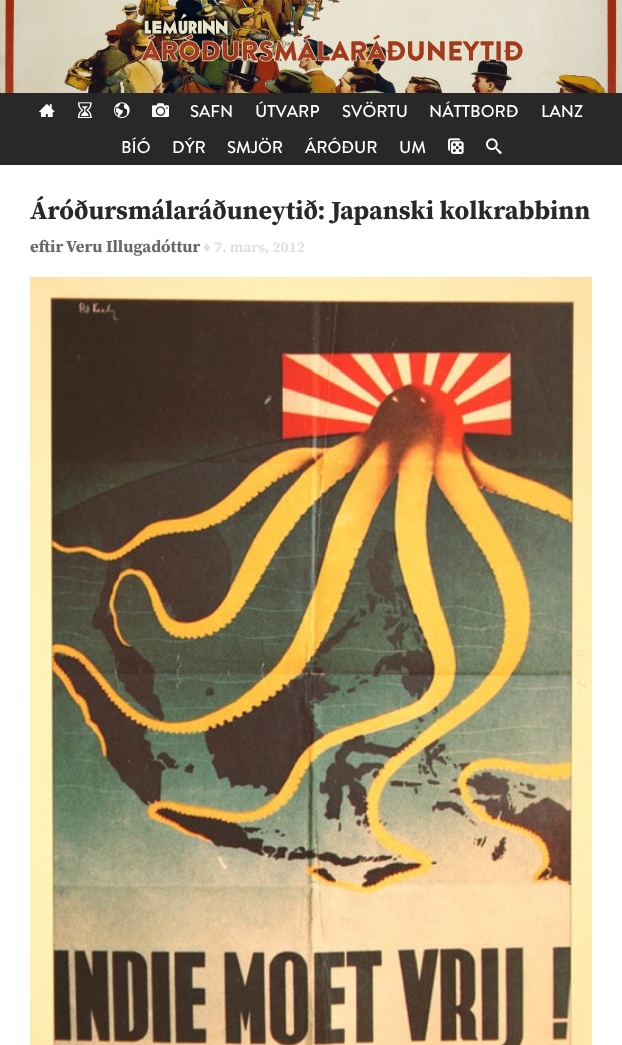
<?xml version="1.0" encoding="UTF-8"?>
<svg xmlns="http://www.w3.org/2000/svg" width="622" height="1045">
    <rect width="100%" height="100%" fill="#FFFFFF"/>
    <image x="0" y="0" width="622" height="93" href="img_01.png"/>
    <rect x="0" y="93" width="622" height="72" fill="#282828"/>
    <image x="39" y="103" width="16" height="14" href="img_02.png"/>
    <image x="78" y="102" width="14" height="16" href="img_03.png"/>
    <image x="114" y="102" width="16" height="16" href="img_04.png"/>
    <image x="152" y="103" width="17" height="14" href="img_05.png"/>
    <text x="190" y="117" font-family="Brandon Grotesque" font-size="17" font-weight="500" fill="#FFFFFF">SAFN</text>
    <text x="255" y="117" font-family="Brandon Grotesque" font-size="17" font-weight="500" fill="#FFFFFF">ÚTVARP</text>
    <text x="342" y="117" font-family="Brandon Grotesque" font-size="17" font-weight="500" fill="#FFFFFF">SVÖRTU</text>
    <text x="429" y="117" font-family="Brandon Grotesque" font-size="17" font-weight="500" fill="#FFFFFF">NÁTTBORÐ</text>
    <text x="541" y="117" font-family="Brandon Grotesque" font-size="17" font-weight="500" fill="#FFFFFF">LANZ</text>
    <text x="121" y="153" font-family="Brandon Grotesque" font-size="17" font-weight="500" fill="#FFFFFF">BÍÓ</text>
    <text x="172" y="153" font-family="Brandon Grotesque" font-size="17" font-weight="500" fill="#FFFFFF">DÝR</text>
    <text x="227" y="153" font-family="Brandon Grotesque" font-size="17" font-weight="500" fill="#FFFFFF">SMJÖR</text>
    <text x="305" y="153" font-family="Brandon Grotesque" font-size="17" font-weight="500" fill="#FFFFFF">ÁRÓÐUR</text>
    <text x="399" y="153" font-family="Brandon Grotesque" font-size="17" font-weight="500" fill="#FFFFFF">UM</text>
    <image x="448" y="138" width="16" height="16" href="img_06.png"/>
    <image x="486" y="138" width="16" height="16" href="img_07.png"/>
    <text x="30" y="219" font-family="Source Serif Pro" font-size="26" font-weight="700" fill="#282828">Áróðursmálaráðuneytið: Japanski kolkrabbinn</text>
    <text x="30" y="252" font-family="Source Serif Pro" font-size="16.75" font-weight="700" fill="#696969">eftir</text>
    <text x="66" y="252" font-family="Source Serif Pro" font-size="16.75" font-weight="700" fill="#696969">Veru Illugadóttur</text>
    <text x="203" y="252" font-family="Liberation Serif" font-size="15" font-weight="700" fill="#E1E1E1">♦</text>
    <text x="214" y="252" font-family="Source Serif Pro" font-size="15" font-weight="700" fill="#E1E1E1">7. mars, 2012</text>
    <image x="30" y="277" width="562" height="768" href="img_08.png"/>
</svg>
